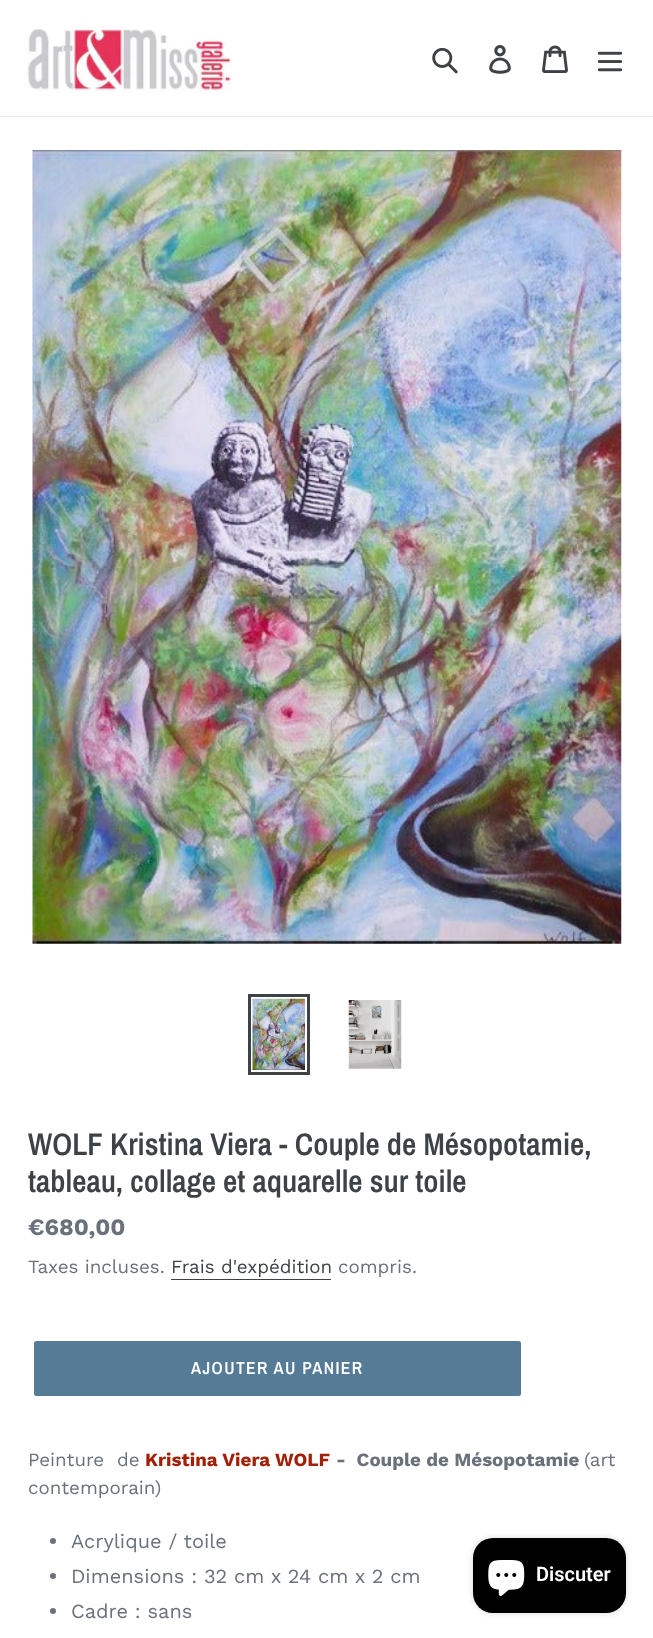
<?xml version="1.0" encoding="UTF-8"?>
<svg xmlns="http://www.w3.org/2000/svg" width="653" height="1638">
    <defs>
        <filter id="blur1" x="-50%" y="-200%" width="200%" height="500%"><feGaussianBlur stdDeviation="3"/></filter>
    </defs>
    <rect width="100%" height="100%" fill="#FFFFFF"/>
    <rect x="0" y="116" width="653" height="1" fill="#E8E9EB"/>
    <image x="27" y="28" width="206" height="64" href="img_01.png"/>
    <image x="432" y="47" width="26" height="27" href="img_02.png"/>
    <image x="489" y="45" width="22" height="29" href="img_03.png"/>
    <image x="542" y="45" width="26" height="28" href="img_04.png"/>
    <image x="597" y="51" width="26" height="21" href="img_05.png"/>
    <image x="32" y="150" width="590" height="794" href="img_06.png"/>
    <rect x="249.5" y="995.5" width="59" height="78" fill="none" stroke="#3D4246" stroke-width="3"/>
    <image x="252" y="998" width="53" height="72" href="img_07.png"/>
    <image x="348" y="1000" width="54" height="69" href="img_08.png"/>
    <text font-family="Archivo Narrow" font-size="31.25" font-weight="600" fill="#3D4246">
        <tspan x="28" y="1155">WOLF Kristina Viera - Couple de Mésopotamie,</tspan>
        <tspan x="28" y="1192">tableau, collage et aquarelle sur toile</tspan>
    </text>
    <text x="28" y="1235" font-family="Work Sans" font-size="23.5" font-weight="700" fill="#69727B">€680,00</text>
    <text x="28" y="1273" font-family="Work Sans" font-size="18.75" fill="#69727B">Taxes incluses.</text>
    <text x="171" y="1273" font-family="Work Sans" font-size="18.75" fill="#3D4246">Frais d'expédition</text>
    <rect x="171" y="1279" width="160" height="1" fill="#3D4246"/>
    <text x="338" y="1273" font-family="Work Sans" font-size="18.75" fill="#69727B">compris.</text>
    <rect x="34" y="1341" width="487" height="55" rx="2.5" fill="#557B97"/>
    <text x="191" y="1374" font-family="Archivo Narrow" font-size="17.5" font-weight="600" letter-spacing="1.4" fill="#FFFFFF">AJOUTER AU PANIER</text>
    <text x="28" y="1466" font-family="Work Sans" font-size="18.75" fill="#69727B" xml:space="preserve">Peinture  de</text>
    <text x="145" y="1466" font-family="Work Sans" font-size="18.75" font-weight="700" fill="#A31F05">Kristina Viera WOLF</text>
    <text x="336" y="1466" font-family="Work Sans" font-size="18.75" font-weight="700" fill="#69727B" xml:space="preserve">-  Couple de Mésopotamie</text>
    <text x="584" y="1466" font-family="Work Sans" font-size="18.75" fill="#69727B">(art</text>
    <text x="28" y="1494" font-family="Work Sans" font-size="18.75" fill="#69727B">contemporain)</text>
    <circle cx="53" cy="1541" r="3" fill="#69727B"/>
    <text x="71" y="1548" font-family="Work Sans" font-size="20" fill="#69727B">Acrylique / toile</text>
    <circle cx="53" cy="1576" r="3" fill="#69727B"/>
    <text x="71" y="1583" font-family="Work Sans" font-size="20" fill="#69727B">Dimensions : 32 cm x 24 cm x 2 cm</text>
    <circle cx="53" cy="1611" r="3" fill="#69727B"/>
    <text x="71" y="1618" font-family="Work Sans" font-size="20" fill="#69727B">Cadre : sans</text>
    <rect x="473" y="1538" width="153" height="75" rx="20" fill="#000000" fill-opacity="0.15" filter="url(#blur1)"/>
    <rect x="473" y="1538" width="153" height="75" rx="20" fill="#000000"/>
    <image x="488" y="1560" width="37" height="36" href="img_09.png"/>
    <text x="536" y="1581" font-family="Roboto" font-size="20" font-weight="600" fill="#FFFFFF">Discuter</text>
</svg>
